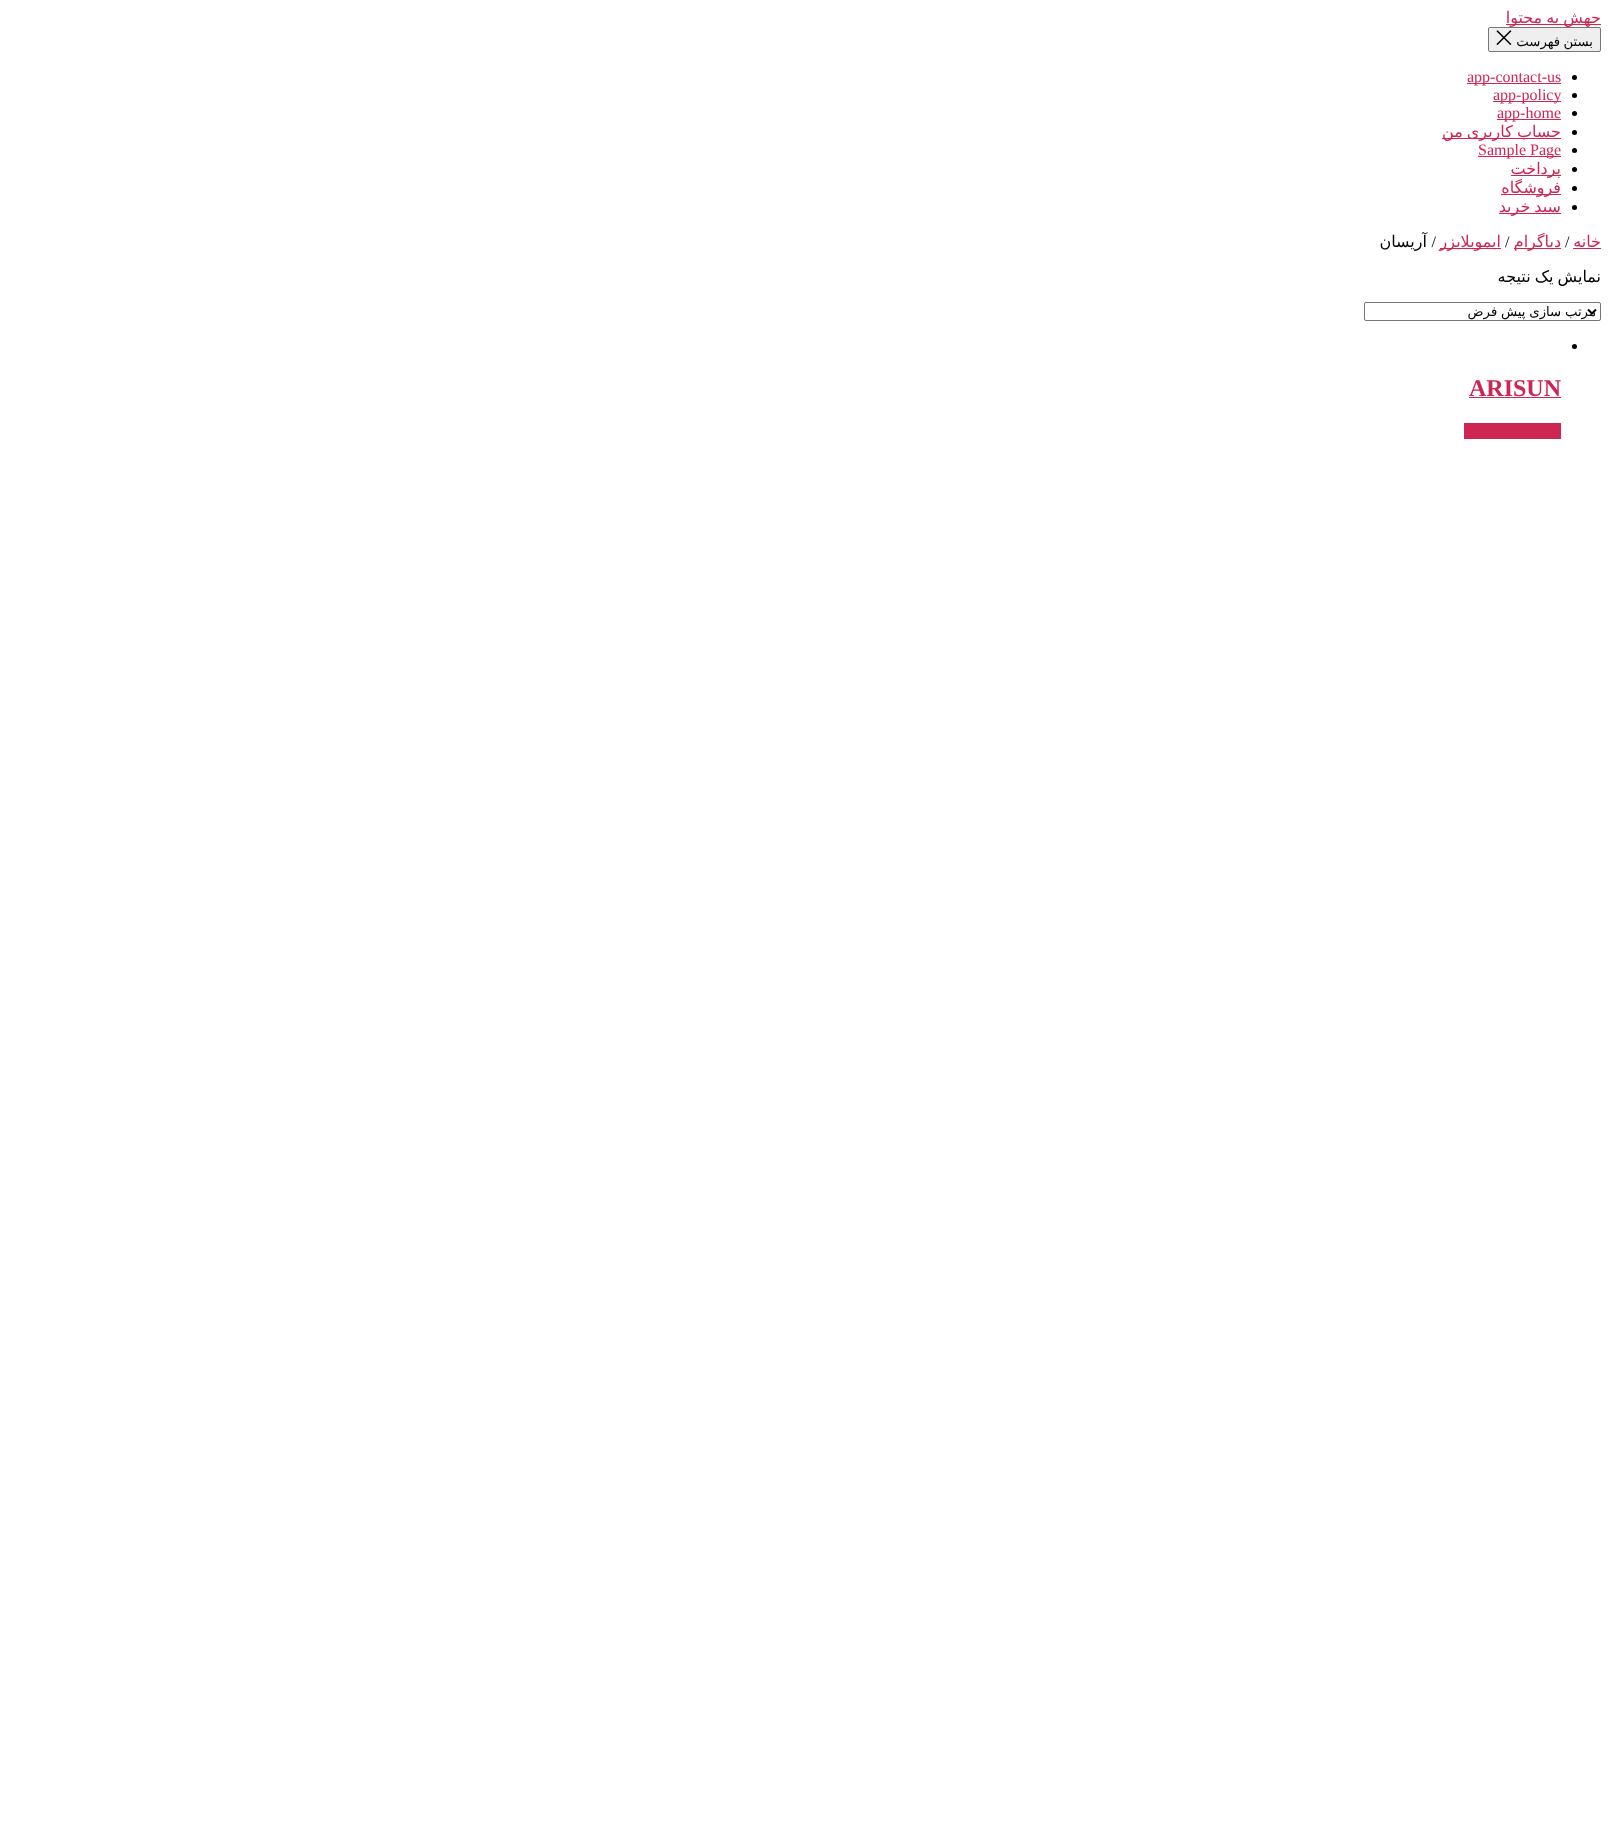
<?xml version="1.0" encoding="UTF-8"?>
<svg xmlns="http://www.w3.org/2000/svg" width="1609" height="1829">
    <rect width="100%" height="100%" fill="#FFFFFF"/>
    <rect x="1506" y="24" width="95" height="1" fill="#CD2653"/>
    <text x="1601" y="23" word-spacing="-1" font-family="DejaVu Sans" font-size="16" direction="rtl" fill="#CD2653">جهش به محتوا</text>
    <rect x="1488.5" y="27.5" width="112" height="24" rx="1.5" fill="#EFEFEF" stroke="#767676"/>
    <text x="1593" y="46" word-spacing="-1" font-family="DejaVu Sans" font-size="13.25" direction="rtl" fill="#000000">بستن فهرست</text>
    <image x="1496" y="30" width="16" height="15" href="img_01.png"/>
    <circle cx="1574.5" cy="77.5" r="2.5" fill="#000000"/>
    <rect x="1467" y="83" width="94" height="1" fill="#CD2653"/>
    <text x="1467" y="82" font-family="Liberation Serif" font-size="16" fill="#CD2653">app-contact-us</text>
    <circle cx="1574.5" cy="95.5" r="2.5" fill="#000000"/>
    <rect x="1493" y="101" width="68" height="1" fill="#CD2653"/>
    <text x="1493" y="100" font-family="Liberation Serif" font-size="16" fill="#CD2653">app-policy</text>
    <circle cx="1574.5" cy="113.5" r="2.5" fill="#000000"/>
    <rect x="1497" y="119" width="64" height="1" fill="#CD2653"/>
    <text x="1497" y="118" font-family="Liberation Serif" font-size="16" fill="#CD2653">app-home</text>
    <circle cx="1574.5" cy="132.5" r="2.5" fill="#000000"/>
    <rect x="1442" y="138" width="119" height="1" fill="#CD2653"/>
    <text x="1561" y="137" word-spacing="-1" font-family="DejaVu Sans" font-size="16" direction="rtl" fill="#CD2653">حساب کاربری من</text>
    <circle cx="1574.5" cy="150.5" r="2.5" fill="#000000"/>
    <rect x="1478" y="156" width="83" height="1" fill="#CD2653"/>
    <text x="1478" y="155" font-family="Liberation Serif" font-size="16" fill="#CD2653">Sample Page</text>
    <circle cx="1574.5" cy="169.5" r="2.5" fill="#000000"/>
    <rect x="1511" y="175" width="50" height="1" fill="#CD2653"/>
    <text x="1561" y="174" font-family="DejaVu Sans" font-size="16" direction="rtl" fill="#CD2653">پرداخت</text>
    <circle cx="1574.5" cy="188.5" r="2.5" fill="#000000"/>
    <rect x="1501" y="194" width="60" height="1" fill="#CD2653"/>
    <text x="1561" y="193" font-family="DejaVu Sans" font-size="16" direction="rtl" fill="#CD2653">فروشگاه</text>
    <circle cx="1574.5" cy="207.5" r="2.5" fill="#000000"/>
    <rect x="1499" y="213" width="62" height="1" fill="#CD2653"/>
    <text x="1561" y="212" word-spacing="-1" font-family="DejaVu Sans" font-size="16" direction="rtl" fill="#CD2653">سبد خرید</text>
    <text x="1601" y="247" font-family="DejaVu Sans" font-size="16" direction="rtl" fill="#CD2653">خانه</text>
    <rect x="1573" y="248" width="28" height="1" fill="#CD2653"/>
    <text x="1565" y="247" font-family="Liberation Serif" font-size="16" fill="#000000">/</text>
    <rect x="1514" y="248" width="47" height="1" fill="#CD2653"/>
    <text x="1561" y="247" font-family="DejaVu Sans" font-size="16" direction="rtl" fill="#CD2653">دیاگرام</text>
    <text x="1505" y="247" font-family="Liberation Serif" font-size="16" fill="#000000">/</text>
    <rect x="1440" y="248" width="61" height="1" fill="#CD2653"/>
    <text x="1501" y="247" font-family="DejaVu Sans" font-size="16" direction="rtl" fill="#CD2653">ایموبلایزر</text>
    <text x="1436" y="247" font-family="Liberation Serif" font-size="16" direction="rtl" fill="#000000">/</text>
    <text x="1427" y="247" font-family="DejaVu Sans" font-size="16" direction="rtl" fill="#000000">آریسان</text>
    <text x="1601" y="282" word-spacing="-1" font-family="DejaVu Sans" font-size="16" direction="rtl" fill="#000000">نمایش یک نتیجه</text>
    <rect x="1364.5" y="302.5" width="236" height="18" rx="1.5" fill="none" stroke="#767676"/>
    <path d="M 1588 309.5 L 1592 313.5 L 1596 309.5" fill="none" stroke="#000000" stroke-width="2"/>
    <text x="1596" y="316" word-spacing="-0.5" font-family="DejaVu Sans" font-size="13.25" direction="rtl" fill="#000000">مرتب سازی پیش فرض</text>
    <circle cx="1574.5" cy="346.5" r="2.5" fill="#000000"/>
    <text x="1469" y="396" font-family="Liberation Serif" font-size="24" font-weight="700" fill="#CD2653">ARISUN</text>
    <rect x="1469" y="397" width="92" height="1" fill="#CD2653"/>
    <rect x="1464" y="423" width="97" height="16" fill="#CD2653"/>
</svg>
